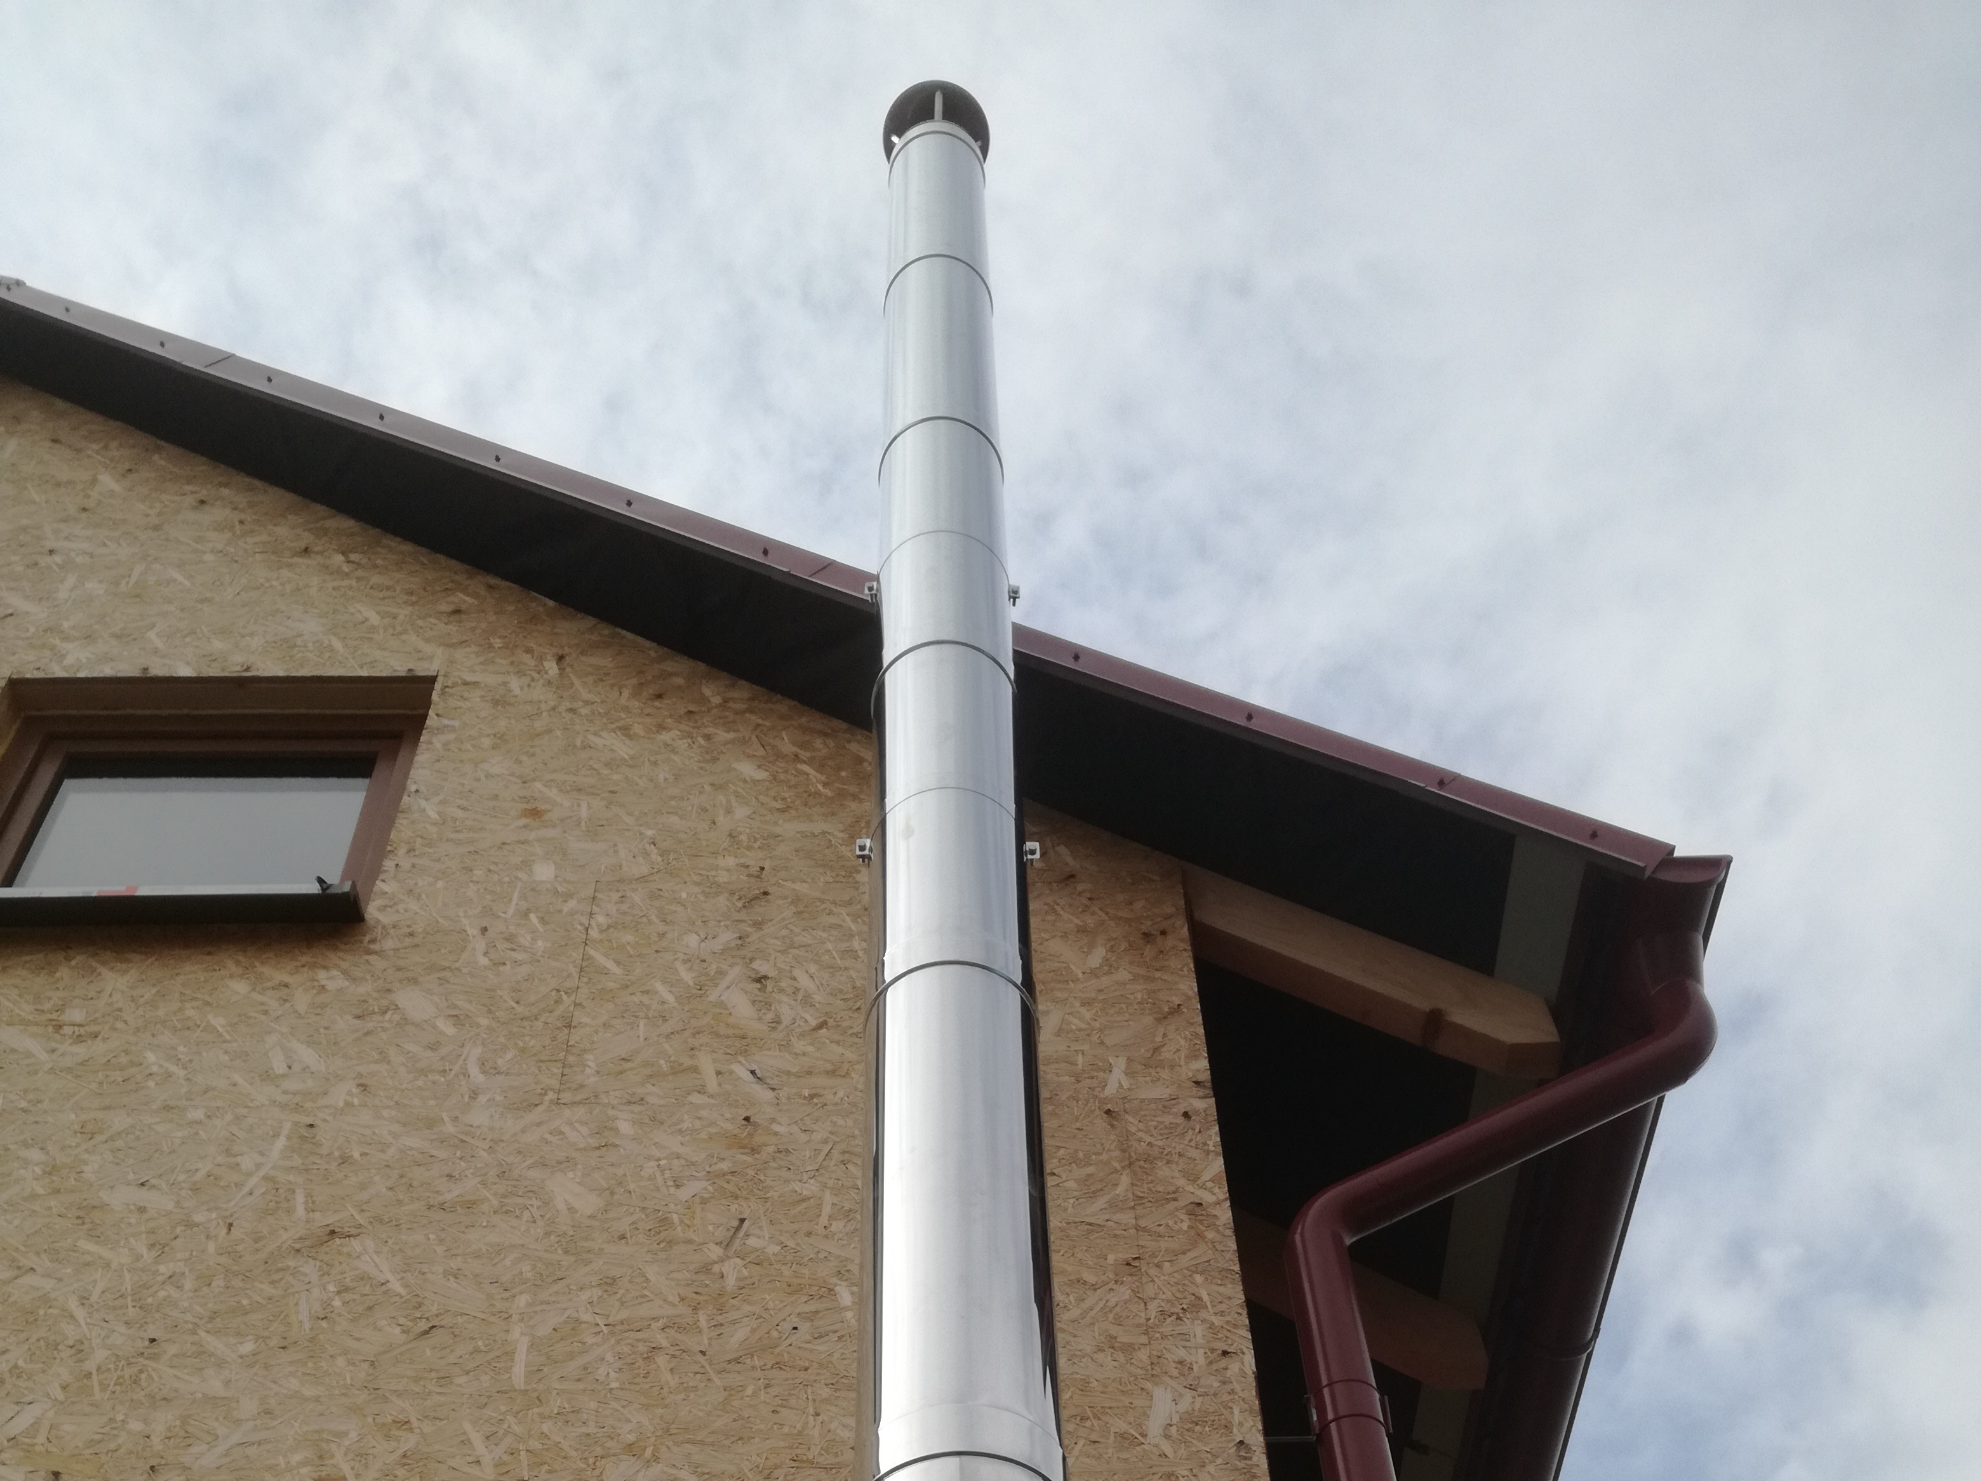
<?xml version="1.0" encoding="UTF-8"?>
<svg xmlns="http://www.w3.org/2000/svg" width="1981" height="1481">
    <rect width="100%" height="100%" fill="#FFFFFF"/>
    <image x="0" y="0" width="1981" height="1481" href="img_01.png"/>
</svg>
